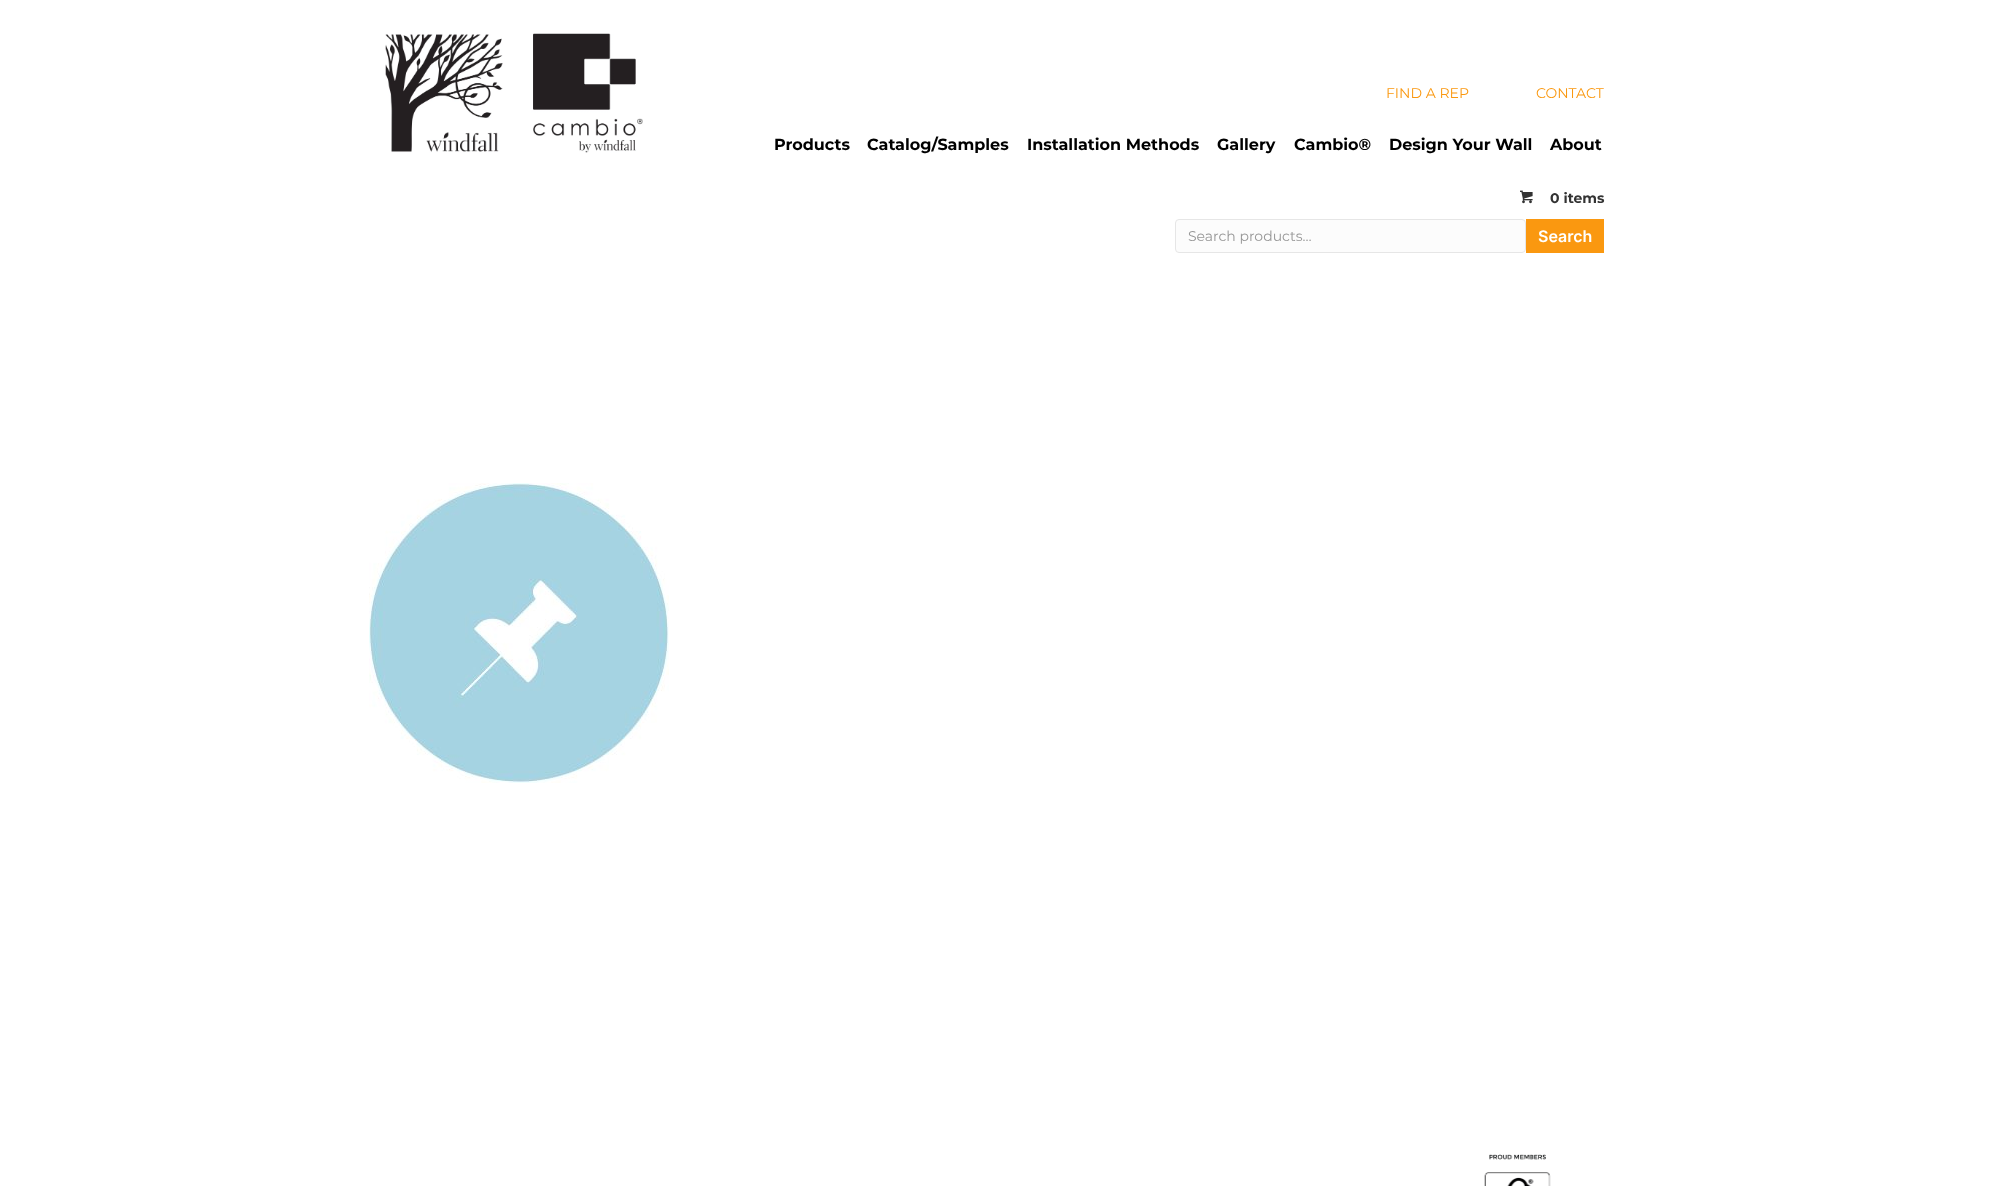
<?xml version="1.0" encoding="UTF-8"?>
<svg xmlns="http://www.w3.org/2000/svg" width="1998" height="1186">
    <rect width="100%" height="100%" fill="#FFFFFF"/>
    <image x="385" y="33" width="258" height="120" href="img_01.png"/>
    <text x="1386" y="98" font-family="Montserrat" font-size="14" fill="#FA9810">FIND A REP</text>
    <text x="1536" y="98" font-family="Montserrat" font-size="14" fill="#FA9810">CONTACT</text>
    <text x="774" y="150" font-family="Montserrat" font-size="16" font-weight="700" fill="#000000">Products</text>
    <text x="867" y="150" font-family="Montserrat" font-size="16" font-weight="700" fill="#000000">Catalog/Samples</text>
    <text x="1027" y="150" font-family="Montserrat" font-size="16" font-weight="700" fill="#000000">Installation Methods</text>
    <text x="1217" y="150" font-family="Montserrat" font-size="16" font-weight="700" fill="#000000">Gallery</text>
    <text x="1294" y="150" font-family="Montserrat" font-size="16" font-weight="700" fill="#000000">Cambio®</text>
    <text x="1389" y="150" font-family="Montserrat" font-size="16" font-weight="700" fill="#000000">Design Your Wall</text>
    <text x="1550" y="150" font-family="Montserrat" font-size="16" font-weight="700" fill="#000000">About</text>
    <image x="1520" y="190" width="13" height="14" href="img_02.png"/>
    <text x="1550" y="203" font-family="Montserrat" font-size="14" font-weight="700" fill="#333333">0 items</text>
    <rect x="1175.5" y="219.5" width="350" height="33" rx="3.5" fill="#FCFCFC" stroke="#E6E6E6"/>
    <text x="1188" y="241" font-family="Montserrat" font-size="14" fill="#979797">Search products…</text>
    <rect x="1526" y="219" width="78" height="34" fill="#FA9810"/>
    <text x="1538" y="242" font-family="Inter" font-size="16" font-weight="600" fill="#FFFFFF">Search</text>
    <image x="369" y="483" width="300" height="300" href="img_03.png"/>
    <image x="1484" y="1154" width="67" height="32" href="img_04.png"/>
</svg>
